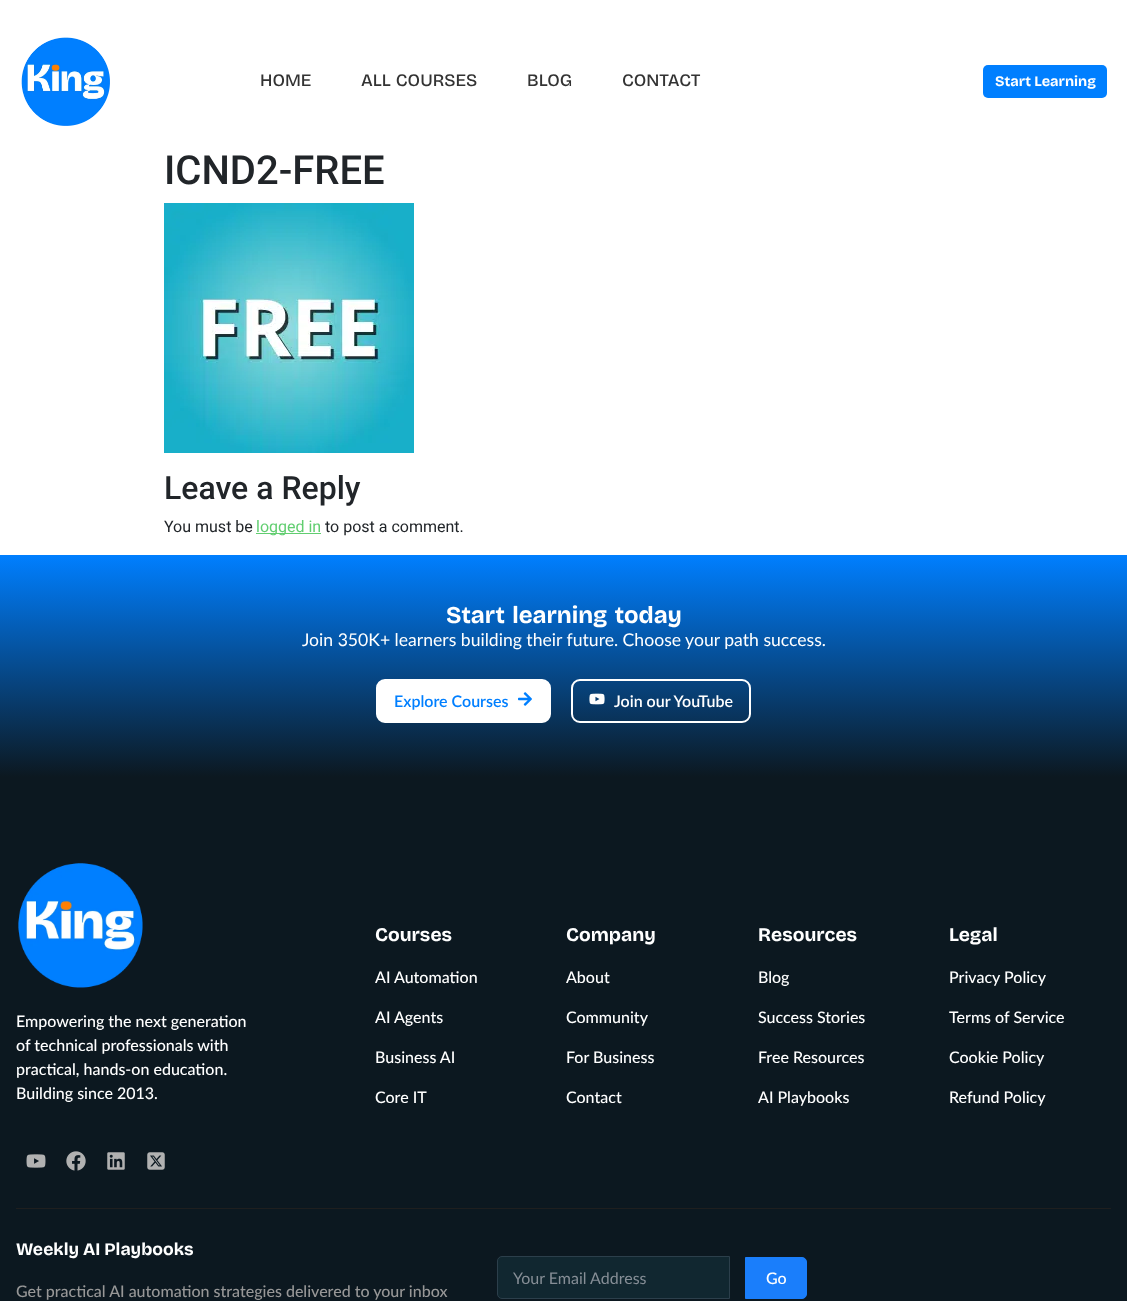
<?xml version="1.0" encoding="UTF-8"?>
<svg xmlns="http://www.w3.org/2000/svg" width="1127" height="1301">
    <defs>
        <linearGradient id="g1" gradientUnits="userSpaceOnUse" x1="564" y1="555" x2="564" y2="813"><stop offset="0" stop-color="#007FFF"/><stop offset="0.86" stop-color="#0C1820"/></linearGradient>
    </defs>
    <rect width="100%" height="100%" fill="#FFFFFF"/>
    <image x="21" y="37" width="89" height="89" href="img_01.png"/>
    <text x="260" y="86" font-family="Bricolage Grotesque" font-size="17.6" font-weight="500" fill="#333333">HOME</text>
    <text x="361" y="86" word-spacing="1" font-family="Bricolage Grotesque" font-size="17.6" font-weight="500" fill="#333333">ALL COURSES</text>
    <text x="527" y="86" font-family="Bricolage Grotesque" font-size="17.6" font-weight="500" fill="#333333">BLOG</text>
    <text x="622" y="86" font-family="Bricolage Grotesque" font-size="17.6" font-weight="500" fill="#333333">CONTACT</text>
    <rect x="983" y="65" width="124" height="33" rx="5" fill="#007FFF"/>
    <text x="995" y="86" font-family="'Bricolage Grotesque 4'" font-size="14.5" font-weight="700" fill="#FFFFFF">Start Learning</text>
    <text x="164" y="184" font-family="Roboto" font-size="40" font-weight="500" fill="#212529">ICND2-FREE</text>
    <image x="164" y="203" width="250" height="250" href="img_02.png"/>
    <text x="164" y="499" font-family="Roboto" font-size="32" font-weight="500" fill="#212529">Leave a Reply</text>
    <text x="164" y="532" font-family="Roboto" font-size="16" fill="#212529">You must be</text>
    <rect x="256" y="533" width="65" height="1" fill="#61CE70"/>
    <text x="256" y="532" font-family="Roboto" font-size="16" fill="#61CE70">logged in</text>
    <text x="325" y="532" font-family="Roboto" font-size="16" fill="#212529">to post a comment.</text>
    <rect x="0" y="555" width="1127" height="258" fill="url(#g1)"/>
    <text x="446" y="623" word-spacing="2" font-family="Bricolage Grotesque" font-size="24" font-weight="700" fill="#FFFFFF">Start learning today</text>
    <text x="302" y="646" font-family="Lato" font-size="17.6" fill="#FFFFFF">Join 350K+ learners building their future. Choose your path success.</text>
    <rect x="377" y="680" width="173" height="42" rx="8" fill="#FFFFFF" stroke="#FFFFFF" stroke-width="2"/>
    <text x="394" y="707" font-family="Lato" font-size="16" font-weight="600" fill="#007FFF">Explore Courses</text>
    <image x="518" y="692" width="14" height="14" href="img_03.png"/>
    <rect x="572" y="680" width="178" height="42" rx="8" fill="none" stroke="#FFFFFF" stroke-width="2"/>
    <image x="589" y="693" width="16" height="12" href="img_04.png"/>
    <text x="614" y="707" font-family="Lato" font-size="16" font-weight="600" fill="#FFFFFF">Join our YouTube</text>
    <rect x="0" y="813" width="1127" height="488" fill="#0C1820"/>
    <image x="18" y="863" width="125" height="125" href="img_05.png"/>
    <text font-family="Lato" font-size="16" font-weight="500" fill="#FFFFFF">
        <tspan x="16" y="1027">Empowering the next generation</tspan>
        <tspan x="16" y="1051">of technical professionals with</tspan>
        <tspan x="16" y="1075">practical, hands-on education.</tspan>
        <tspan x="16" y="1099">Building since 2013.</tspan>
    </text>
    <image x="26" y="1154" width="20" height="14" href="img_06.png"/>
    <image x="66" y="1151" width="20" height="20" href="img_07.png"/>
    <image x="107" y="1152" width="18" height="18" href="img_08.png"/>
    <image x="147" y="1152" width="18" height="18" href="img_09.png"/>
    <text x="375" y="941" font-family="'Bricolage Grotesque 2'" font-size="19.25" font-weight="700" fill="#FFFFFF">Courses</text>
    <text x="375" y="983" font-family="Lato" font-size="16" font-weight="500" fill="#FFFFFF">AI Automation</text>
    <text x="375" y="1023" font-family="Lato" font-size="16" font-weight="500" fill="#FFFFFF">AI Agents</text>
    <text x="375" y="1063" font-family="Lato" font-size="16" font-weight="500" fill="#FFFFFF">Business AI</text>
    <text x="375" y="1103" font-family="Lato" font-size="16" font-weight="500" fill="#FFFFFF">Core IT</text>
    <text x="566" y="941" font-family="'Bricolage Grotesque 2'" font-size="19.25" font-weight="700" fill="#FFFFFF">Company</text>
    <text x="566" y="983" font-family="Lato" font-size="16" font-weight="500" fill="#FFFFFF">About</text>
    <text x="566" y="1023" font-family="Lato" font-size="16" font-weight="500" fill="#FFFFFF">Community</text>
    <text x="566" y="1063" font-family="Lato" font-size="16" font-weight="500" fill="#FFFFFF">For Business</text>
    <text x="566" y="1103" font-family="Lato" font-size="16" font-weight="500" fill="#FFFFFF">Contact</text>
    <text x="758" y="941" font-family="'Bricolage Grotesque 2'" font-size="19.25" font-weight="700" fill="#FFFFFF">Resources</text>
    <text x="758" y="983" font-family="Lato" font-size="16" font-weight="500" fill="#FFFFFF">Blog</text>
    <text x="758" y="1023" font-family="Lato" font-size="16" font-weight="500" fill="#FFFFFF">Success Stories</text>
    <text x="758" y="1063" font-family="Lato" font-size="16" font-weight="500" fill="#FFFFFF">Free Resources</text>
    <text x="758" y="1103" font-family="Lato" font-size="16" font-weight="500" fill="#FFFFFF">AI Playbooks</text>
    <text x="949" y="941" font-family="'Bricolage Grotesque 2'" font-size="19.25" font-weight="700" fill="#FFFFFF">Legal</text>
    <text x="949" y="983" font-family="Lato" font-size="16" font-weight="500" fill="#FFFFFF">Privacy Policy</text>
    <text x="949" y="1023" font-family="Lato" font-size="16" font-weight="500" fill="#FFFFFF">Terms of Service</text>
    <text x="949" y="1063" font-family="Lato" font-size="16" font-weight="500" fill="#FFFFFF">Cookie Policy</text>
    <text x="949" y="1103" font-family="Lato" font-size="16" font-weight="500" fill="#FFFFFF">Refund Policy</text>
    <rect x="16" y="1208" width="1095" height="1" fill="#1F1F1F"/>
    <text x="16" y="1255" font-family="'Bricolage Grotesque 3'" font-size="17.6" font-weight="700" fill="#FFFFFF">Weekly AI Playbooks</text>
    <text x="16" y="1297" font-family="Lato" font-size="16" font-weight="500" fill="#979797">Get practical AI automation strategies delivered to your inbox</text>
    <path d="M 502 1256.5 H 729.5 V 1298.5 H 502 C 499.5 1298.5 497.5 1296.5 497.5 1294 V 1261 C 497.5 1258.5 499.5 1256.5 502 1256.5 Z" fill="#112730" stroke="#2C3F4B"/>
    <text x="513" y="1284" font-family="Lato" font-size="16" fill="#868E96">Your Email Address</text>
    <path d="M 745.5 1257.5 H 802 C 804.5 1257.5 806.5 1259.5 806.5 1262 V 1294 C 806.5 1296.5 804.5 1298.5 802 1298.5 H 745.5 Z" fill="#1A7EFB" stroke="#1A7EFB"/>
    <text x="766" y="1284" font-family="Lato" font-size="16" font-weight="500" fill="#FFFFFF">Go</text>
</svg>
